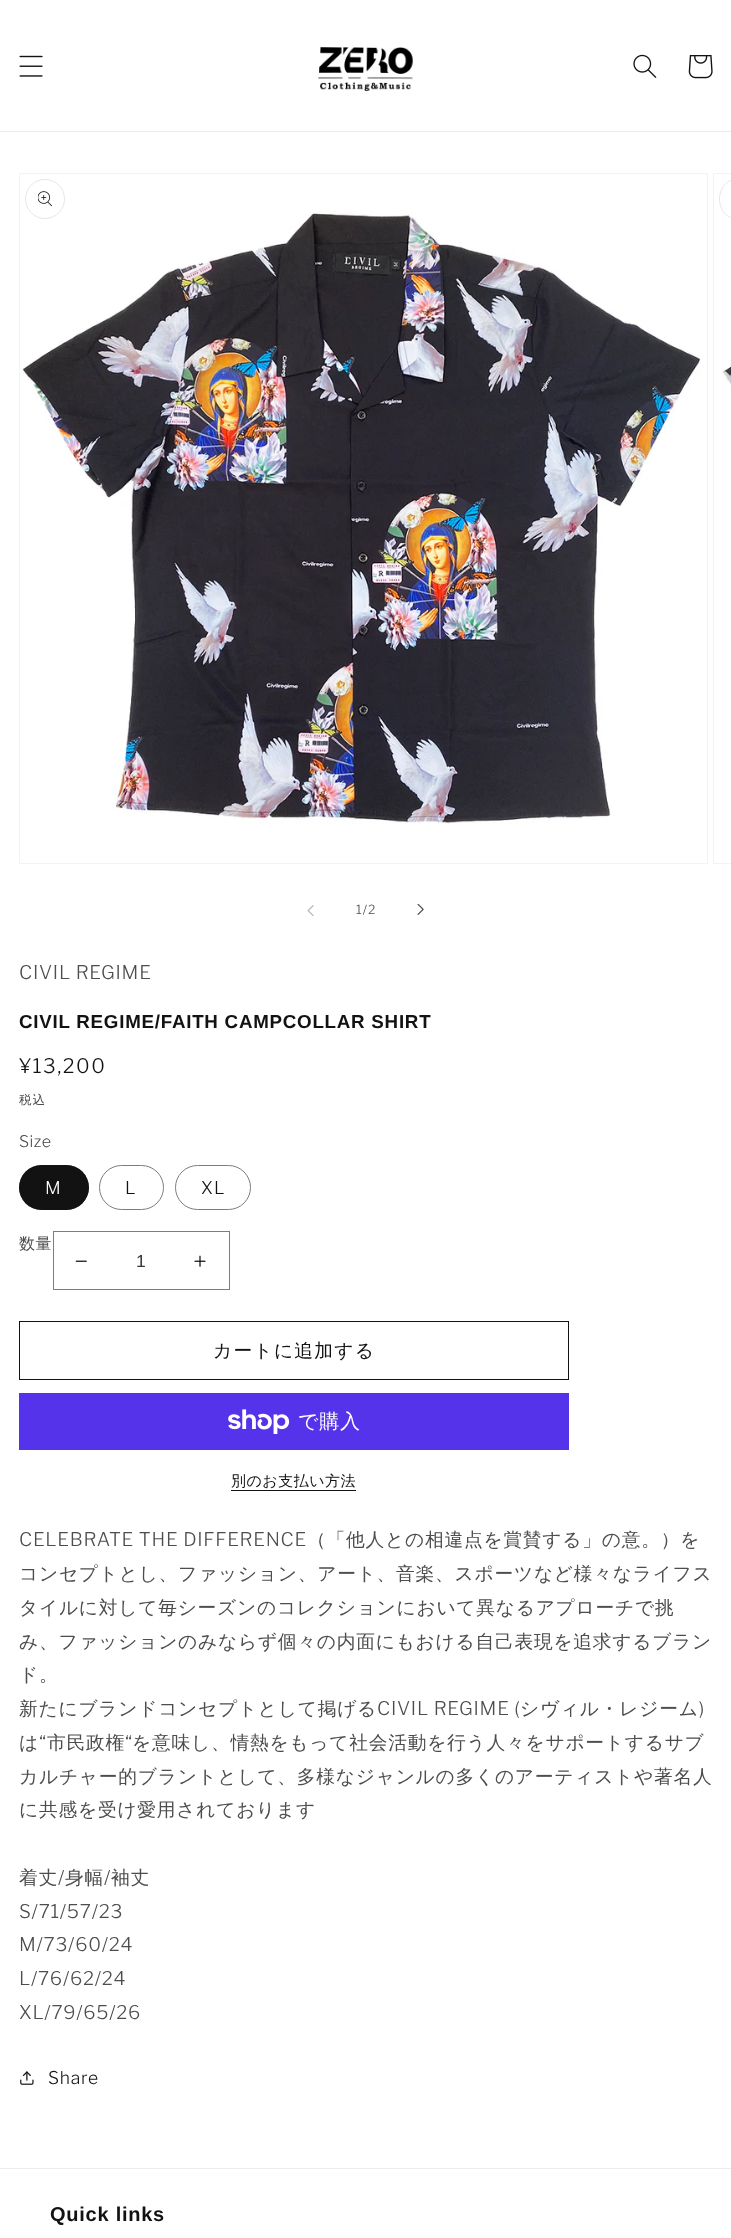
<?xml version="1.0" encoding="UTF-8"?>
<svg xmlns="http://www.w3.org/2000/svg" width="731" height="2238">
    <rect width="100%" height="100%" fill="#FFFFFF"/>
    <rect x="0" y="131" width="731" height="1" fill="#ECECEC"/>
    <image x="19" y="55" width="24" height="22" href="img_01.png"/>
    <image x="318" y="47" width="96" height="44" href="img_02.png"/>
    <image x="633" y="54" width="24" height="24" href="img_03.png"/>
    <image x="688" y="55" width="25" height="24" href="img_04.png"/>
    <rect x="19.5" y="173.5" width="688" height="690" fill="none" stroke="#F3F3F3"/>
    <image x="22" y="211" width="679" height="613" href="img_05.png"/>
    <circle cx="45" cy="199" r="19.5" fill="none" stroke="#E7E7E7"/>
    <image x="38" y="191" width="14" height="16" href="img_06.png"/>
    <rect x="713.5" y="173.5" width="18" height="690" fill="none" stroke="#F3F3F3"/>
    <image x="722" y="366" width="9" height="19" href="img_07.png"/>
    <rect x="719.5" y="179.5" width="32" height="39" rx="19.5" fill="none" stroke="#E7E7E7"/>
    <image x="307" y="905" width="7" height="11" href="img_08.png"/>
    <text x="356" y="914" font-family="Libre Franklin" font-size="12.5" font-weight="300" letter-spacing="1" fill="#4D4D4D">1/2</text>
    <image x="417" y="904" width="7" height="11" href="img_09.png"/>
    <text x="19" y="979" font-family="Libre Franklin" font-size="18.75" font-weight="300" letter-spacing="0.75" fill="#4D4D4D">CIVIL REGIME</text>
    <text x="19" y="1028" font-family="Arimo" font-size="18.75" font-weight="700" letter-spacing="0.75" fill="#121212">CIVIL REGIME/FAITH CAMPCOLLAR SHIRT</text>
    <text x="19" y="1073" font-family="Libre Franklin" font-size="20" font-weight="300" letter-spacing="1.5" fill="#121212">¥13,200</text>
    <text x="19" y="1104" font-family="WenQuanYi Zen Hei" font-size="12.5" font-weight="500" letter-spacing="1" fill="#4D4D4D">税込</text>
    <text x="19" y="1147" font-family="Libre Franklin" font-size="16" font-weight="300" letter-spacing="0.5" fill="#4D4D4D">Size</text>
    <rect x="19" y="1165" width="70" height="45" rx="22.5" fill="#121212"/>
    <rect x="19.5" y="1165.5" width="69" height="44" rx="22" fill="none" stroke="#121212" stroke-opacity="0.55"/>
    <text x="45" y="1194" font-family="Libre Franklin" font-size="17.5" font-weight="300" letter-spacing="1.25" fill="#FFFFFF">M</text>
    <rect x="99.5" y="1165.5" width="64" height="44" rx="22" fill="none" stroke="#7D7D7D"/>
    <text x="125" y="1194" font-family="Libre Franklin" font-size="17.5" font-weight="300" letter-spacing="1.25" fill="#121212">L</text>
    <rect x="175.5" y="1165.5" width="75" height="44" rx="22" fill="none" stroke="#7D7D7D"/>
    <text x="201" y="1194" font-family="Libre Franklin" font-size="17.5" font-weight="300" letter-spacing="1.25" fill="#121212">XL</text>
    <text x="19" y="1249" font-family="WenQuanYi Zen Hei" font-size="16" font-weight="500" letter-spacing="0.5" fill="#4D4D4D">数量</text>
    <image x="75" y="1260" width="12" height="2" href="img_10.png"/>
    <image x="194" y="1255" width="12" height="12" href="img_11.png"/>
    <rect x="53.5" y="1231.5" width="176" height="58" fill="none" stroke="#7D7D7D"/>
    <text x="136" y="1267" font-family="Liberation Sans" font-size="17.5" fill="#363636">1</text>
    <rect x="19.5" y="1321.5" width="549" height="58" fill="none" stroke="#121212"/>
    <text x="213" y="1357" font-family="WenQuanYi Zen Hei" font-size="18.75" font-weight="500" letter-spacing="1.25" fill="#121212">カートに追加する</text>
    <rect x="19" y="1393" width="550" height="57" fill="#5433EB"/>
    <image x="228" y="1409" width="62" height="25" href="img_12.png"/>
    <text x="298" y="1428" font-family="WenQuanYi Zen Hei" font-size="20" font-weight="500" letter-spacing="0.75" fill="#FFFFFF">で購入</text>
    <text x="231" y="1486" font-family="WenQuanYi Zen Hei" font-size="15" font-weight="500" letter-spacing="0.5" fill="#121212">別のお支払い方法</text>
    <rect x="231" y="1490" width="125" height="1" fill="#121212"/>
    <text x="19" y="1546" font-family="Libre Franklin" font-size="18.75" font-weight="300" letter-spacing="0.75" fill="#4D4D4D">CELEBRATE THE DIFFERENCE</text>
    <text x="307" y="1546" font-family="WenQuanYi Zen Hei" font-size="18.75" font-weight="500" letter-spacing="0.75" fill="#4D4D4D">（「他人との相違点を賞賛する」の意。）を</text>
    <text font-family="WenQuanYi Zen Hei" font-size="18.75" font-weight="500" letter-spacing="0.75" fill="#4D4D4D">
        <tspan x="19" y="1580">コンセプトとし、ファッション、アート、音楽、スポーツなど様々なライフス</tspan>
        <tspan x="19" y="1614">タイルに対して毎シーズンのコレクションにおいて異なるアプローチで挑</tspan>
        <tspan x="19" y="1648">み、ファッションのみならず個々の内面にもおける自己表現を追求するブラン</tspan>
        <tspan x="19" y="1681">ド。</tspan>
        <tspan x="19" y="1715">新たにブランドコンセプトとして掲げる</tspan>
    </text>
    <text x="377" y="1715" font-family="Libre Franklin" font-size="18.75" font-weight="300" letter-spacing="0.75" fill="#4D4D4D">CIVIL REGIME (</text>
    <text x="520" y="1715" font-family="WenQuanYi Zen Hei" font-size="18.75" font-weight="500" letter-spacing="0.75" fill="#4D4D4D">シヴィル・レジーム</text>
    <text x="699" y="1715" font-family="Libre Franklin" font-size="18.75" font-weight="300" letter-spacing="0.75" fill="#4D4D4D">)</text>
    <text x="19" y="1749" font-family="WenQuanYi Zen Hei" font-size="18.75" font-weight="500" letter-spacing="0.75" fill="#4D4D4D">は</text>
    <text x="39" y="1749" font-family="Libre Franklin" font-size="18.75" font-weight="300" letter-spacing="0.75" fill="#4D4D4D">“</text>
    <text x="47" y="1749" font-family="WenQuanYi Zen Hei" font-size="18.75" font-weight="500" letter-spacing="0.75" fill="#4D4D4D">市民政権</text>
    <text x="125" y="1749" font-family="Libre Franklin" font-size="18.75" font-weight="300" letter-spacing="0.75" fill="#4D4D4D">“</text>
    <text x="132" y="1749" font-family="WenQuanYi Zen Hei" font-size="18.75" font-weight="500" letter-spacing="0.75" fill="#4D4D4D">を意味し、情熱をもって社会活動を行う人々をサポートするサブ</text>
    <text font-family="WenQuanYi Zen Hei" font-size="18.75" font-weight="500" letter-spacing="0.75" fill="#4D4D4D">
        <tspan x="19" y="1783">カルチャー的ブラントとして、多様なジャンルの多くのアーティストや著名人</tspan>
        <tspan x="19" y="1816">に共感を受け愛用されております</tspan>
    </text>
    <text x="19" y="1884" font-family="WenQuanYi Zen Hei" font-size="18.75" font-weight="500" letter-spacing="0.75" fill="#4D4D4D">着丈</text>
    <text x="58" y="1884" font-family="Libre Franklin" font-size="18.75" font-weight="300" letter-spacing="0.75" fill="#4D4D4D">/</text>
    <text x="65" y="1884" font-family="WenQuanYi Zen Hei" font-size="18.75" font-weight="500" letter-spacing="0.75" fill="#4D4D4D">身幅</text>
    <text x="104" y="1884" font-family="Libre Franklin" font-size="18.75" font-weight="300" letter-spacing="0.75" fill="#4D4D4D">/</text>
    <text x="111" y="1884" font-family="WenQuanYi Zen Hei" font-size="18.75" font-weight="500" letter-spacing="0.75" fill="#4D4D4D">袖丈</text>
    <text font-family="Libre Franklin" font-size="18.75" font-weight="300" letter-spacing="0.75" fill="#4D4D4D">
        <tspan x="19" y="1918">S/71/57/23</tspan>
        <tspan x="19" y="1951">M/73/60/24</tspan>
        <tspan x="19" y="1985">L/76/62/24</tspan>
        <tspan x="19" y="2019">XL/79/65/26</tspan>
    </text>
    <image x="20" y="2071" width="14" height="14" href="img_13.png"/>
    <text x="48" y="2084" font-family="Libre Franklin" font-size="17.5" font-weight="300" letter-spacing="0.75" fill="#121212">Share</text>
    <rect x="0" y="2168" width="731" height="1" fill="#ECECEC"/>
    <text x="50" y="2221" font-family="Arimo" font-size="20" font-weight="700" letter-spacing="0.75" fill="#121212">Quick links</text>
</svg>
